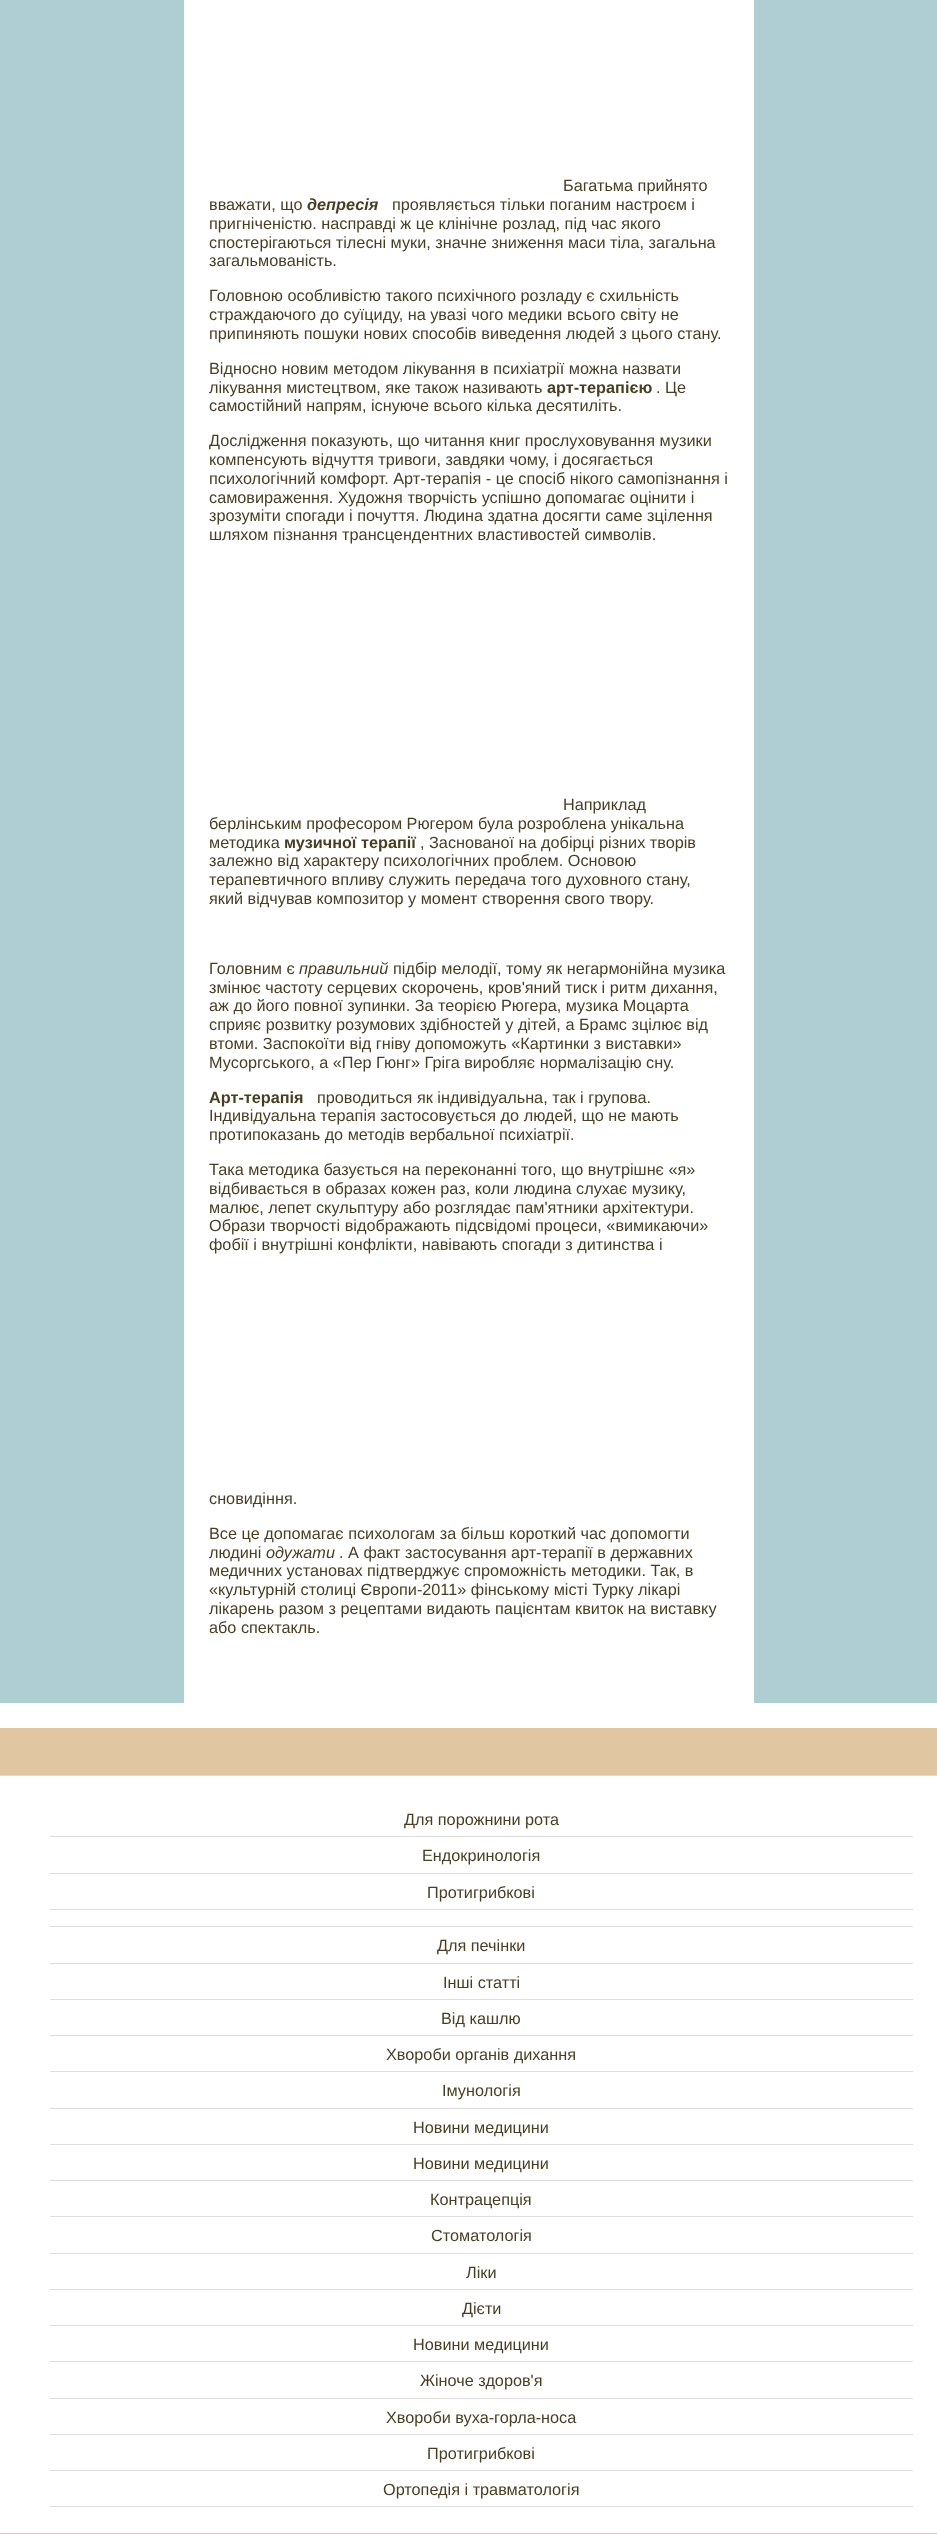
<?xml version="1.0" encoding="UTF-8"?>
<svg xmlns="http://www.w3.org/2000/svg" width="937" height="2534">
    <rect width="100%" height="100%" fill="#AFCED3"/>
    <rect x="184" y="0" width="570" height="1703" fill="#FFFFFF"/>
    <text x="563" y="191" font-family="Liberation Sans" font-size="16.25" fill="#493E24">Багатьма прийнято</text>
    <text x="209" y="210" font-family="Liberation Sans" font-size="16.25" fill="#493E24">вважати, що</text>
    <text x="307" y="210" font-family="Liberation Sans" font-size="16.25" font-weight="700" font-style="italic" fill="#493E24">депресія</text>
    <text x="392" y="210" font-family="Liberation Sans" font-size="16.25" fill="#493E24">проявляється тільки поганим настроєм і</text>
    <text font-family="Liberation Sans" font-size="16.25" fill="#493E24">
        <tspan x="209" y="229">пригніченістю. насправді ж це клінічне розлад, під час якого</tspan>
        <tspan x="209" y="248">спостерігаються тілесні муки, значне зниження маси тіла, загальна</tspan>
        <tspan x="209" y="266">загальмованість.</tspan>
    </text>
    <text font-family="Liberation Sans" font-size="16.25" fill="#493E24">
        <tspan x="209" y="301">Головною особливістю такого психічного розладу є схильність</tspan>
        <tspan x="209" y="320">страждаючого до суїциду, на увазі чого медики всього світу не</tspan>
        <tspan x="209" y="339">припиняють пошуки нових способів виведення людей з цього стану.</tspan>
    </text>
    <text font-family="Liberation Sans" font-size="16.25" fill="#493E24">
        <tspan x="209" y="374">Відносно новим методом лікування в психіатрії можна назвати</tspan>
        <tspan x="209" y="393">лікування мистецтвом, яке також називають</tspan>
    </text>
    <text x="547" y="393" font-family="Liberation Sans" font-size="16.25" font-weight="700" fill="#493E24">арт-терапією</text>
    <text x="656" y="393" font-family="Liberation Sans" font-size="16.25" fill="#493E24">. Це</text>
    <text x="209" y="411" font-family="Liberation Sans" font-size="16.25" fill="#493E24">самостійний напрям, існуюче всього кілька десятиліть.</text>
    <text font-family="Liberation Sans" font-size="16.25" fill="#493E24">
        <tspan x="209" y="446">Дослідження показують, що читання книг прослуховування музики</tspan>
        <tspan x="209" y="465">компенсують відчуття тривоги, завдяки чому, і досягається</tspan>
        <tspan x="209" y="484">психологічний комфорт. Арт-терапія - це спосіб нікого самопізнання і</tspan>
        <tspan x="209" y="503">самовираження. Художня творчість успішно допомагає оцінити і</tspan>
        <tspan x="209" y="521">зрозуміти спогади і почуття. Людина здатна досягти саме зцілення</tspan>
        <tspan x="209" y="540">шляхом пізнання трансцендентних властивостей символів.</tspan>
    </text>
    <text x="563" y="810" font-family="Liberation Sans" font-size="16.25" fill="#493E24">Наприклад</text>
    <text font-family="Liberation Sans" font-size="16.25" fill="#493E24">
        <tspan x="209" y="829">берлінським професором Рюгером була розроблена унікальна</tspan>
        <tspan x="209" y="848">методика</tspan>
    </text>
    <text x="284" y="848" font-family="Liberation Sans" font-size="16.25" font-weight="700" fill="#493E24">музичної терапії</text>
    <text x="420" y="848" font-family="Liberation Sans" font-size="16.25" fill="#493E24">, Заснованої на добірці різних творів</text>
    <text font-family="Liberation Sans" font-size="16.25" fill="#493E24">
        <tspan x="209" y="866">залежно від характеру психологічних проблем. Основою</tspan>
        <tspan x="209" y="885">терапевтичного впливу служить передача того духовного стану,</tspan>
        <tspan x="209" y="904">який відчував композитор у момент створення свого твору.</tspan>
    </text>
    <text x="209" y="974" font-family="Liberation Sans" font-size="16.25" fill="#493E24">Головним є</text>
    <text x="299" y="974" font-family="Liberation Sans" font-size="16.25" font-style="italic" fill="#493E24">правильний</text>
    <text x="393" y="974" font-family="Liberation Sans" font-size="16.25" fill="#493E24">підбір мелодії, тому як негармонійна музика</text>
    <text font-family="Liberation Sans" font-size="16.25" fill="#493E24">
        <tspan x="209" y="993">змінює частоту серцевих скорочень, кров'яний тиск і ритм дихання,</tspan>
        <tspan x="209" y="1011">аж до його повної зупинки. За теорією Рюгера, музика Моцарта</tspan>
        <tspan x="209" y="1030">сприяє розвитку розумових здібностей у дітей, а Брамс зцілює від</tspan>
        <tspan x="209" y="1049">втоми. Заспокоїти від гніву допоможуть «Картинки з виставки»</tspan>
        <tspan x="209" y="1068">Мусоргського, а «Пер Гюнг» Гріга виробляє нормалізацію сну.</tspan>
    </text>
    <text x="209" y="1103" font-family="Liberation Sans" font-size="16.25" font-weight="700" fill="#493E24">Арт-терапія</text>
    <text x="317" y="1103" font-family="Liberation Sans" font-size="16.25" fill="#493E24">проводиться як індивідуальна, так і групова.</text>
    <text font-family="Liberation Sans" font-size="16.25" fill="#493E24">
        <tspan x="209" y="1121">Індивідуальна терапія застосовується до людей, що не мають</tspan>
        <tspan x="209" y="1140">протипоказань до методів вербальної психіатрії.</tspan>
    </text>
    <text font-family="Liberation Sans" font-size="16.25" fill="#493E24">
        <tspan x="209" y="1175">Така методика базується на переконанні того, що внутрішнє «я»</tspan>
        <tspan x="209" y="1194">відбивається в образах кожен раз, коли людина слухає музику,</tspan>
        <tspan x="209" y="1213">малює, лепет скульптуру або розглядає пам'ятники архітектури.</tspan>
        <tspan x="209" y="1231">Образи творчості відображають підсвідомі процеси, «вимикаючи»</tspan>
        <tspan x="209" y="1250">фобії і внутрішні конфлікти, навівають спогади з дитинства і</tspan>
    </text>
    <text x="209" y="1504" font-family="Liberation Sans" font-size="16.25" fill="#493E24">сновидіння.</text>
    <text font-family="Liberation Sans" font-size="16.25" fill="#493E24">
        <tspan x="209" y="1539">Все це допомагає психологам за більш короткий час допомогти</tspan>
        <tspan x="209" y="1558">людині</tspan>
    </text>
    <text x="266" y="1558" font-family="Liberation Sans" font-size="16.25" font-style="italic" fill="#493E24">одужати</text>
    <text x="339" y="1558" font-family="Liberation Sans" font-size="16.25" fill="#493E24">. А факт застосування арт-терапії в державних</text>
    <text font-family="Liberation Sans" font-size="16.25" fill="#493E24">
        <tspan x="209" y="1576">медичних установах підтверджує спроможність методики. Так, в</tspan>
        <tspan x="209" y="1595">«культурній столиці Європи-2011» фінському місті Турку лікарі</tspan>
        <tspan x="209" y="1614">лікарень разом з рецептами видають пацієнтам квиток на виставку</tspan>
        <tspan x="209" y="1633">або спектакль.</tspan>
    </text>
    <rect x="0" y="1703" width="937" height="830" fill="#FFFFFF"/>
    <rect x="0" y="1728" width="937" height="47" fill="#E0C7A2"/>
    <rect x="0" y="1775" width="937" height="1" fill="#EDDABE"/>
    <text x="404" y="1825" font-family="Liberation Sans" font-size="16.25" fill="#493E24">Для порожнини рота</text>
    <rect x="50" y="1836" width="863" height="1" fill="#DEDEDE"/>
    <text x="422" y="1861" font-family="Liberation Sans" font-size="16.25" fill="#493E24">Ендокринологія</text>
    <rect x="50" y="1873" width="863" height="1" fill="#DEDEDE"/>
    <text x="427" y="1898" font-family="Liberation Sans" font-size="16.25" fill="#493E24">Протигрибкові</text>
    <rect x="50" y="1909" width="863" height="1" fill="#DEDEDE"/>
    <rect x="50" y="1926" width="863" height="1" fill="#DEDEDE"/>
    <text x="437" y="1951" font-family="Liberation Sans" font-size="16.25" fill="#493E24">Для печінки</text>
    <rect x="50" y="1963" width="863" height="1" fill="#DEDEDE"/>
    <text x="443" y="1988" font-family="Liberation Sans" font-size="16.25" fill="#493E24">Інші статті</text>
    <rect x="50" y="1999" width="863" height="1" fill="#DEDEDE"/>
    <text x="441" y="2024" font-family="Liberation Sans" font-size="16.25" fill="#493E24">Від кашлю</text>
    <rect x="50" y="2035" width="863" height="1" fill="#DEDEDE"/>
    <text x="386" y="2060" font-family="Liberation Sans" font-size="16.25" fill="#493E24">Хвороби органів дихання</text>
    <rect x="50" y="2071" width="863" height="1" fill="#DEDEDE"/>
    <text x="442" y="2096" font-family="Liberation Sans" font-size="16.25" fill="#493E24">Імунологія</text>
    <rect x="50" y="2108" width="863" height="1" fill="#DEDEDE"/>
    <text x="413" y="2133" font-family="Liberation Sans" font-size="16.25" fill="#493E24">Новини медицини</text>
    <rect x="50" y="2144" width="863" height="1" fill="#DEDEDE"/>
    <text x="413" y="2169" font-family="Liberation Sans" font-size="16.25" fill="#493E24">Новини медицини</text>
    <rect x="50" y="2180" width="863" height="1" fill="#DEDEDE"/>
    <text x="430" y="2205" font-family="Liberation Sans" font-size="16.25" fill="#493E24">Контрацепція</text>
    <rect x="50" y="2216" width="863" height="1" fill="#DEDEDE"/>
    <text x="431" y="2241" font-family="Liberation Sans" font-size="16.25" fill="#493E24">Стоматологія</text>
    <rect x="50" y="2253" width="863" height="1" fill="#DEDEDE"/>
    <text x="466" y="2278" font-family="Liberation Sans" font-size="16.25" fill="#493E24">Ліки</text>
    <rect x="50" y="2289" width="863" height="1" fill="#DEDEDE"/>
    <text x="462" y="2314" font-family="Liberation Sans" font-size="16.25" fill="#493E24">Дієти</text>
    <rect x="50" y="2325" width="863" height="1" fill="#DEDEDE"/>
    <text x="413" y="2350" font-family="Liberation Sans" font-size="16.25" fill="#493E24">Новини медицини</text>
    <rect x="50" y="2361" width="863" height="1" fill="#DEDEDE"/>
    <text x="420" y="2386" font-family="Liberation Sans" font-size="16.25" fill="#493E24">Жіноче здоров'я</text>
    <rect x="50" y="2398" width="863" height="1" fill="#DEDEDE"/>
    <text x="386" y="2423" font-family="Liberation Sans" font-size="16.25" fill="#493E24">Хвороби вуха-горла-носа</text>
    <rect x="50" y="2434" width="863" height="1" fill="#DEDEDE"/>
    <text x="427" y="2459" font-family="Liberation Sans" font-size="16.25" fill="#493E24">Протигрибкові</text>
    <rect x="50" y="2470" width="863" height="1" fill="#DEDEDE"/>
    <text x="383" y="2495" font-family="Liberation Sans" font-size="16.25" fill="#493E24">Ортопедія і травматологія</text>
    <rect x="50" y="2506" width="863" height="1" fill="#DEDEDE"/>
    <rect x="0" y="2533" width="937" height="1" fill="#E0C7A2"/>
</svg>
